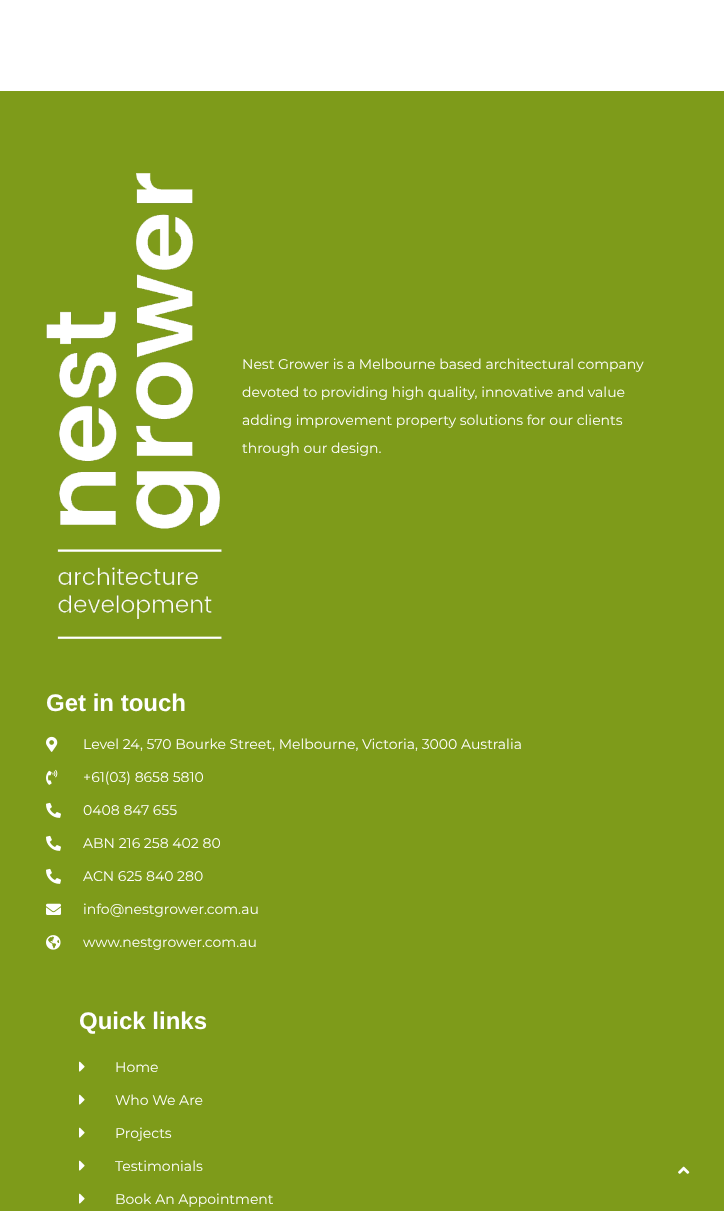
<?xml version="1.0" encoding="UTF-8"?>
<svg xmlns="http://www.w3.org/2000/svg" width="724" height="1211">
    <rect width="100%" height="100%" fill="#FFFFFF"/>
    <rect x="0" y="91" width="724" height="1120" fill="#7E9B1A"/>
    <image x="46" y="173" width="176" height="466" href="img_01.png"/>
    <text x="242" y="369" font-family="Montserrat" font-size="14" fill="#FFFFFF">Nest Grower is a Melbourne based architectural company</text>
    <text x="242" y="397" font-family="Montserrat" font-size="14" fill="#FFFFFF">devoted to providing high quality, innovative and value</text>
    <text x="242" y="425" font-family="Montserrat" font-size="14" fill="#FFFFFF">adding improvement property solutions for our clients</text>
    <text x="242" y="453" font-family="Montserrat" font-size="14" fill="#FFFFFF">through our design.</text>
    <text x="46" y="711" font-family="Liberation Sans" font-size="24" font-weight="700" fill="#FFFFFF">Get in touch</text>
    <image x="46" y="736" width="12" height="16" href="img_02.png"/>
    <text x="83" y="749" font-family="Montserrat" font-size="14" fill="#FFFFFF">Level 24, 570 Bourke Street, Melbourne, Victoria, 3000 Australia</text>
    <image x="46" y="769" width="12" height="16" href="img_03.png"/>
    <text x="83" y="782" font-family="Montserrat" font-size="14" fill="#FFFFFF">+61(03) 8658 5810</text>
    <image x="46" y="802" width="15" height="16" href="img_04.png"/>
    <text x="83" y="815" font-family="Montserrat" font-size="14" fill="#FFFFFF">0408 847 655</text>
    <image x="46" y="835" width="15" height="16" href="img_04.png"/>
    <text x="83" y="848" font-family="Montserrat" font-size="14" fill="#FFFFFF">ABN 216 258 402 80</text>
    <image x="46" y="868" width="15" height="16" href="img_04.png"/>
    <text x="83" y="881" font-family="Montserrat" font-size="14" fill="#FFFFFF">ACN 625 840 280</text>
    <image x="46" y="903" width="15" height="12" href="img_05.png"/>
    <text x="83" y="914" font-family="Montserrat" font-size="14" fill="#FFFFFF">info@nestgrower.com.au</text>
    <image x="46" y="935" width="15" height="15" href="img_06.png"/>
    <text x="83" y="947" font-family="Montserrat" font-size="14" fill="#FFFFFF">www.nestgrower.com.au</text>
    <text x="79" y="1029" font-family="Liberation Sans" font-size="24" font-weight="700" fill="#FFFFFF">Quick links</text>
    <image x="79" y="1061" width="6" height="11" href="img_07.png"/>
    <text x="115" y="1072" font-family="Montserrat" font-size="14" fill="#FFFFFF">Home</text>
    <image x="79" y="1094" width="6" height="11" href="img_07.png"/>
    <text x="115" y="1105" font-family="Montserrat" font-size="14" fill="#FFFFFF">Who We Are</text>
    <image x="79" y="1127" width="6" height="11" href="img_07.png"/>
    <text x="115" y="1138" font-family="Montserrat" font-size="14" fill="#FFFFFF">Projects</text>
    <image x="79" y="1160" width="6" height="11" href="img_07.png"/>
    <text x="115" y="1171" font-family="Montserrat" font-size="14" fill="#FFFFFF">Testimonials</text>
    <image x="79" y="1193" width="6" height="11" href="img_07.png"/>
    <text x="115" y="1204" font-family="Montserrat" font-size="14" fill="#FFFFFF">Book An Appointment</text>
    <image x="678" y="1166" width="12" height="8" href="img_08.png"/>
</svg>
